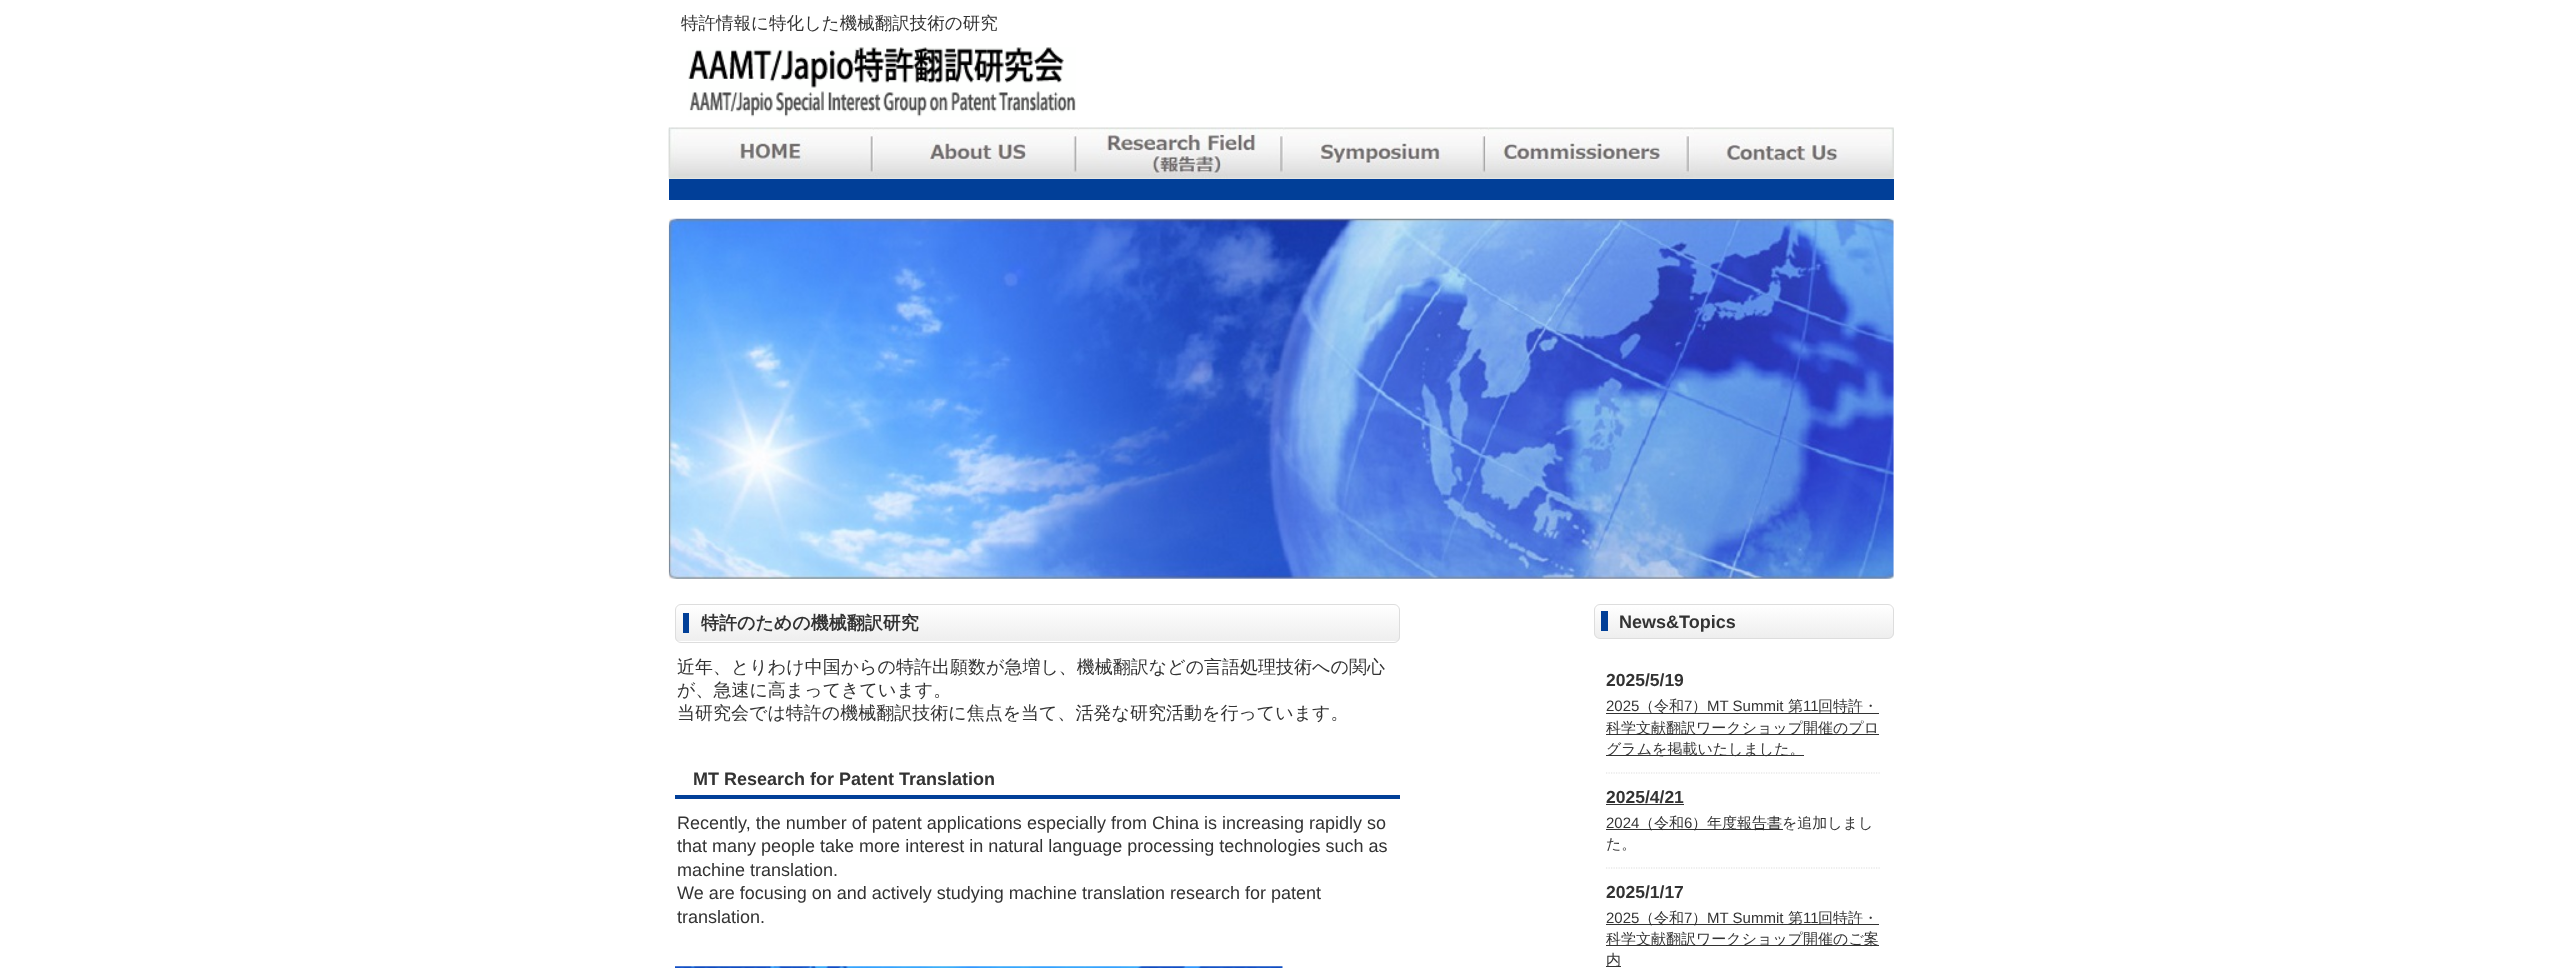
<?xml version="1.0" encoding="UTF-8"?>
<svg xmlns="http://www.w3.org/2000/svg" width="2561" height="968">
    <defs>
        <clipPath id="clip1"><rect x="675" y="604" width="725" height="39" rx="6"/></clipPath>
        <linearGradient id="g1" gradientUnits="userSpaceOnUse" x1="676" y1="605" x2="676" y2="641"><stop offset="0" stop-color="#FFFFFF"/><stop offset="1" stop-color="#EEEEEE"/></linearGradient>
        <clipPath id="clip2"><rect x="1594" y="604" width="300" height="35" rx="6"/></clipPath>
        <linearGradient id="g2" gradientUnits="userSpaceOnUse" x1="1595" y1="605" x2="1595" y2="638"><stop offset="0" stop-color="#FFFFFF"/><stop offset="1" stop-color="#EEEEEE"/></linearGradient>
    </defs>
    <rect width="100%" height="100%" fill="#FFFFFF"/>
    <text x="681" y="29" font-family="WenQuanYi Zen Hei" font-size="17.5" font-weight="500" fill="#333333">特許情報に特化した機械翻訳技術の研究</text>
    <image x="688" y="47" width="388" height="70" href="img_01.png"/>
    <image x="668" y="128" width="1226" height="51" href="img_02.png"/>
    <image x="668" y="127" width="206" height="50" href="img_03.png"/>
    <image x="874" y="127" width="205" height="50" href="img_04.png"/>
    <image x="1079" y="127" width="205" height="50" href="img_05.png"/>
    <image x="1284" y="127" width="205" height="48" href="img_06.png"/>
    <image x="1489" y="127" width="205" height="49" href="img_07.png"/>
    <image x="1694" y="127" width="200" height="50" href="img_08.png"/>
    <rect x="669" y="179" width="1225" height="21" fill="#013F98"/>
    <image x="668" y="218" width="1226" height="361" href="img_09.png"/>
    <g clip-path="url(#clip1)">
        <rect x="675" y="605" width="725" height="36" fill="url(#g1)"/>
    </g>
    <rect x="675.5" y="604.5" width="724" height="38" rx="5.5" fill="none" stroke="#DDDDDD"/>
    <text x="701" y="629" font-family="WenQuanYi Zen Hei" font-size="18" font-weight="700" fill="#333333">特許のための機械翻訳研究</text>
    <rect x="683" y="613" width="6" height="20" fill="#013F98"/>
    <text font-family="WenQuanYi Zen Hei" font-size="18" font-weight="500" fill="#333333">
        <tspan x="677" y="673">近年、とりわけ中国からの特許出願数が急増し、機械翻訳などの言語処理技術への関心</tspan>
        <tspan x="677" y="696">が、急速に高まってきています。</tspan>
        <tspan x="677" y="719">当研究会では特許の機械翻訳技術に焦点を当て、活発な研究活動を行っています。</tspan>
    </text>
    <rect x="675" y="795" width="725" height="4" fill="#013F98"/>
    <text x="693" y="785" font-family="Liberation Sans" font-size="18" font-weight="700" fill="#333333">MT Research for Patent Translation</text>
    <text font-family="Liberation Sans" font-size="18" fill="#333333">
        <tspan x="677" y="829">Recently, the number of patent applications especially from China is increasing rapidly so</tspan>
        <tspan x="677" y="852">that many people take more interest in natural language processing technologies such as</tspan>
        <tspan x="677" y="876">machine translation.</tspan>
        <tspan x="677" y="899">We are focusing on and actively studying machine translation research for patent</tspan>
        <tspan x="677" y="923">translation.</tspan>
    </text>
    <image x="675" y="966" width="608" height="2" href="img_10.png"/>
    <g clip-path="url(#clip2)">
        <rect x="1594" y="605" width="300" height="33" fill="url(#g2)"/>
    </g>
    <rect x="1594.5" y="604.5" width="299" height="34" rx="5.5" fill="none" stroke="#DDDDDD"/>
    <text x="1619" y="628" font-family="Liberation Sans" font-size="18" font-weight="700" fill="#333333">News&amp;Topics</text>
    <rect x="1601" y="611" width="7" height="20" fill="#013F98"/>
    <path d="M 1606 773 H 1881" fill="none" stroke="#DDDDDD" stroke-width="1.2" stroke-dasharray="1.25 1.25"/>
    <text x="1606" y="686" font-family="Liberation Sans" font-size="17.5" font-weight="700" fill="#333333">2025/5/19</text>
    <text x="1606" y="711" font-family="Liberation Sans" font-size="15" fill="#333333">2025</text>
    <rect x="1606" y="713" width="273" height="1" fill="#333333"/>
    <text x="1639" y="711" font-family="WenQuanYi Zen Hei" font-size="15" font-weight="500" fill="#333333">（令和</text>
    <text x="1684" y="711" font-family="Liberation Sans" font-size="15" fill="#333333">7</text>
    <text x="1692" y="711" font-family="WenQuanYi Zen Hei" font-size="15" font-weight="500" fill="#333333">）</text>
    <text x="1707" y="711" font-family="Liberation Sans" font-size="15" fill="#333333">MT Summit</text>
    <text x="1788" y="711" font-family="WenQuanYi Zen Hei" font-size="15" font-weight="500" fill="#333333">第</text>
    <text x="1803" y="711" font-family="Liberation Sans" font-size="15" fill="#333333">11</text>
    <text x="1818" y="711" font-family="WenQuanYi Zen Hei" font-size="15" font-weight="500" fill="#333333">回特許・</text>
    <rect x="1606" y="734" width="273" height="1" fill="#333333"/>
    <text x="1606" y="733" font-family="WenQuanYi Zen Hei" font-size="15" font-weight="500" fill="#333333">科学文献翻訳ワークショップ開催のプロ</text>
    <rect x="1606" y="755" width="198" height="1" fill="#333333"/>
    <text x="1606" y="754" font-family="WenQuanYi Zen Hei" font-size="15" font-weight="500" fill="#333333">グラムを掲載いたしました。</text>
    <path d="M 1606 868 H 1881" fill="none" stroke="#DDDDDD" stroke-width="1.2" stroke-dasharray="1.25 1.25"/>
    <text x="1606" y="803" font-family="Liberation Sans" font-size="17.5" font-weight="700" fill="#333333">2025/4/21</text>
    <rect x="1606" y="804" width="78" height="1" fill="#333333"/>
    <text x="1606" y="828" font-family="Liberation Sans" font-size="15" fill="#333333">2024</text>
    <rect x="1606" y="829" width="177" height="1" fill="#333333"/>
    <text x="1639" y="828" font-family="WenQuanYi Zen Hei" font-size="15" font-weight="500" fill="#333333">（令和</text>
    <text x="1684" y="828" font-family="Liberation Sans" font-size="15" fill="#333333">6</text>
    <text x="1692" y="828" font-family="WenQuanYi Zen Hei" font-size="15" font-weight="500" fill="#333333">）年度報告書を追加しまし</text>
    <text x="1606" y="849" font-family="WenQuanYi Zen Hei" font-size="15" font-weight="500" fill="#333333">た。</text>
    <text x="1606" y="898" font-family="Liberation Sans" font-size="17.5" font-weight="700" fill="#333333">2025/1/17</text>
    <text x="1606" y="923" font-family="Liberation Sans" font-size="15" fill="#333333">2025</text>
    <rect x="1606" y="924" width="273" height="1" fill="#333333"/>
    <text x="1639" y="923" font-family="WenQuanYi Zen Hei" font-size="15" font-weight="500" fill="#333333">（令和</text>
    <text x="1684" y="923" font-family="Liberation Sans" font-size="15" fill="#333333">7</text>
    <text x="1692" y="923" font-family="WenQuanYi Zen Hei" font-size="15" font-weight="500" fill="#333333">）</text>
    <text x="1707" y="923" font-family="Liberation Sans" font-size="15" fill="#333333">MT Summit</text>
    <text x="1788" y="923" font-family="WenQuanYi Zen Hei" font-size="15" font-weight="500" fill="#333333">第</text>
    <text x="1803" y="923" font-family="Liberation Sans" font-size="15" fill="#333333">11</text>
    <text x="1818" y="923" font-family="WenQuanYi Zen Hei" font-size="15" font-weight="500" fill="#333333">回特許・</text>
    <rect x="1606" y="945" width="273" height="1" fill="#333333"/>
    <text x="1606" y="944" font-family="WenQuanYi Zen Hei" font-size="15" font-weight="500" fill="#333333">科学文献翻訳ワークショップ開催のご案</text>
    <rect x="1606" y="966" width="15" height="1" fill="#333333"/>
    <text x="1606" y="965" font-family="WenQuanYi Zen Hei" font-size="15" font-weight="500" fill="#333333">内</text>
</svg>
